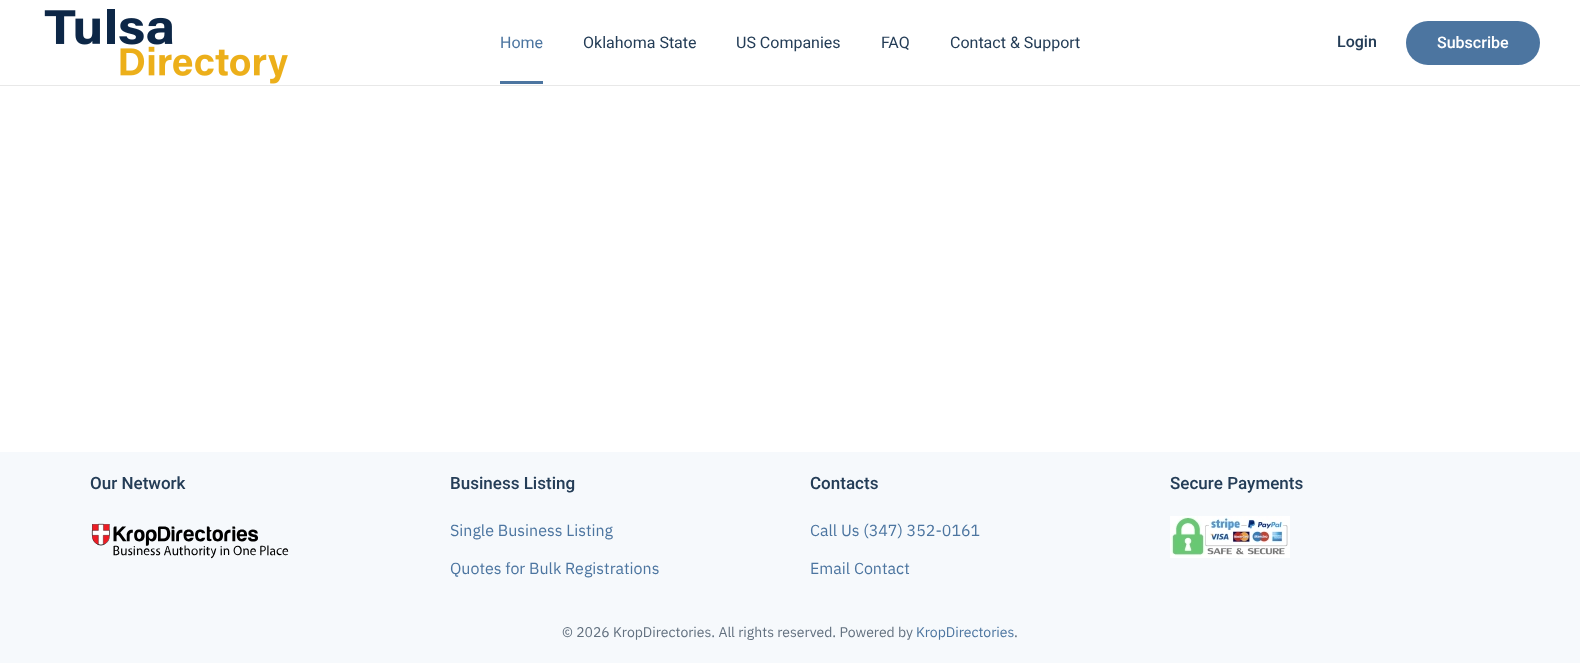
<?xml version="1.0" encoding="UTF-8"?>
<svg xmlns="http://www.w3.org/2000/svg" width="1580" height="663">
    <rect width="100%" height="100%" fill="#FFFFFF"/>
    <rect x="0" y="85" width="1580" height="1" fill="#E8E8E8"/>
    <image x="44" y="9" width="244" height="75" href="img_01.png"/>
    <text x="500" y="48" font-family="Heebo" font-size="16" fill="#4C75A0">Home</text>
    <rect x="500" y="81" width="43" height="3" fill="#4C75A0"/>
    <text x="583" y="48" font-family="Heebo" font-size="16" fill="#243D57">Oklahoma State</text>
    <text x="736" y="48" font-family="Heebo" font-size="16" fill="#243D57">US Companies</text>
    <text x="881" y="48" font-family="Heebo" font-size="16" fill="#243D57">FAQ</text>
    <text x="950" y="48" font-family="Heebo" font-size="16" fill="#243D57">Contact &amp; Support</text>
    <text x="1337" y="47" font-family="Heebo" font-size="16" font-weight="500" fill="#243D57">Login</text>
    <rect x="1406" y="21" width="134" height="44" rx="22" fill="#4C75A0"/>
    <text x="1437" y="48" font-family="Heebo" font-size="16" font-weight="500" fill="#FFFFFF">Subscribe</text>
    <rect x="0" y="452" width="1580" height="211" fill="#F6F9FC"/>
    <text x="90" y="489" font-family="Heebo" font-size="17" font-weight="500" fill="#243D57">Our Network</text>
    <image x="91" y="523" width="198" height="36" href="img_02.png"/>
    <text x="450" y="489" font-family="Heebo" font-size="17" font-weight="500" fill="#243D57">Business Listing</text>
    <text x="450" y="536" font-family="IBM Plex Sans" font-size="16" fill="#4C75A0">Single Business Listing</text>
    <text x="450" y="574" font-family="IBM Plex Sans" font-size="16" fill="#4C75A0">Quotes for Bulk Registrations</text>
    <text x="810" y="489" font-family="Heebo" font-size="17" font-weight="500" fill="#243D57">Contacts</text>
    <text x="810" y="536" font-family="IBM Plex Sans" font-size="16" fill="#4C75A0">Call Us (347) 352-0161</text>
    <text x="810" y="574" font-family="IBM Plex Sans" font-size="16" fill="#4C75A0">Email Contact</text>
    <text x="1170" y="489" font-family="Heebo" font-size="17" font-weight="500" fill="#243D57">Secure Payments</text>
    <image x="1170" y="516" width="120" height="42" href="img_03.png"/>
    <text x="562" y="637" font-family="IBM Plex Sans" font-size="14" fill="#62707F">© 2026 KropDirectories. All rights reserved. Powered by</text>
    <text x="916" y="637" font-family="IBM Plex Sans" font-size="14" fill="#4C75A0">KropDirectories</text>
    <text x="1014" y="637" font-family="IBM Plex Sans" font-size="14" fill="#62707F">.</text>
</svg>
